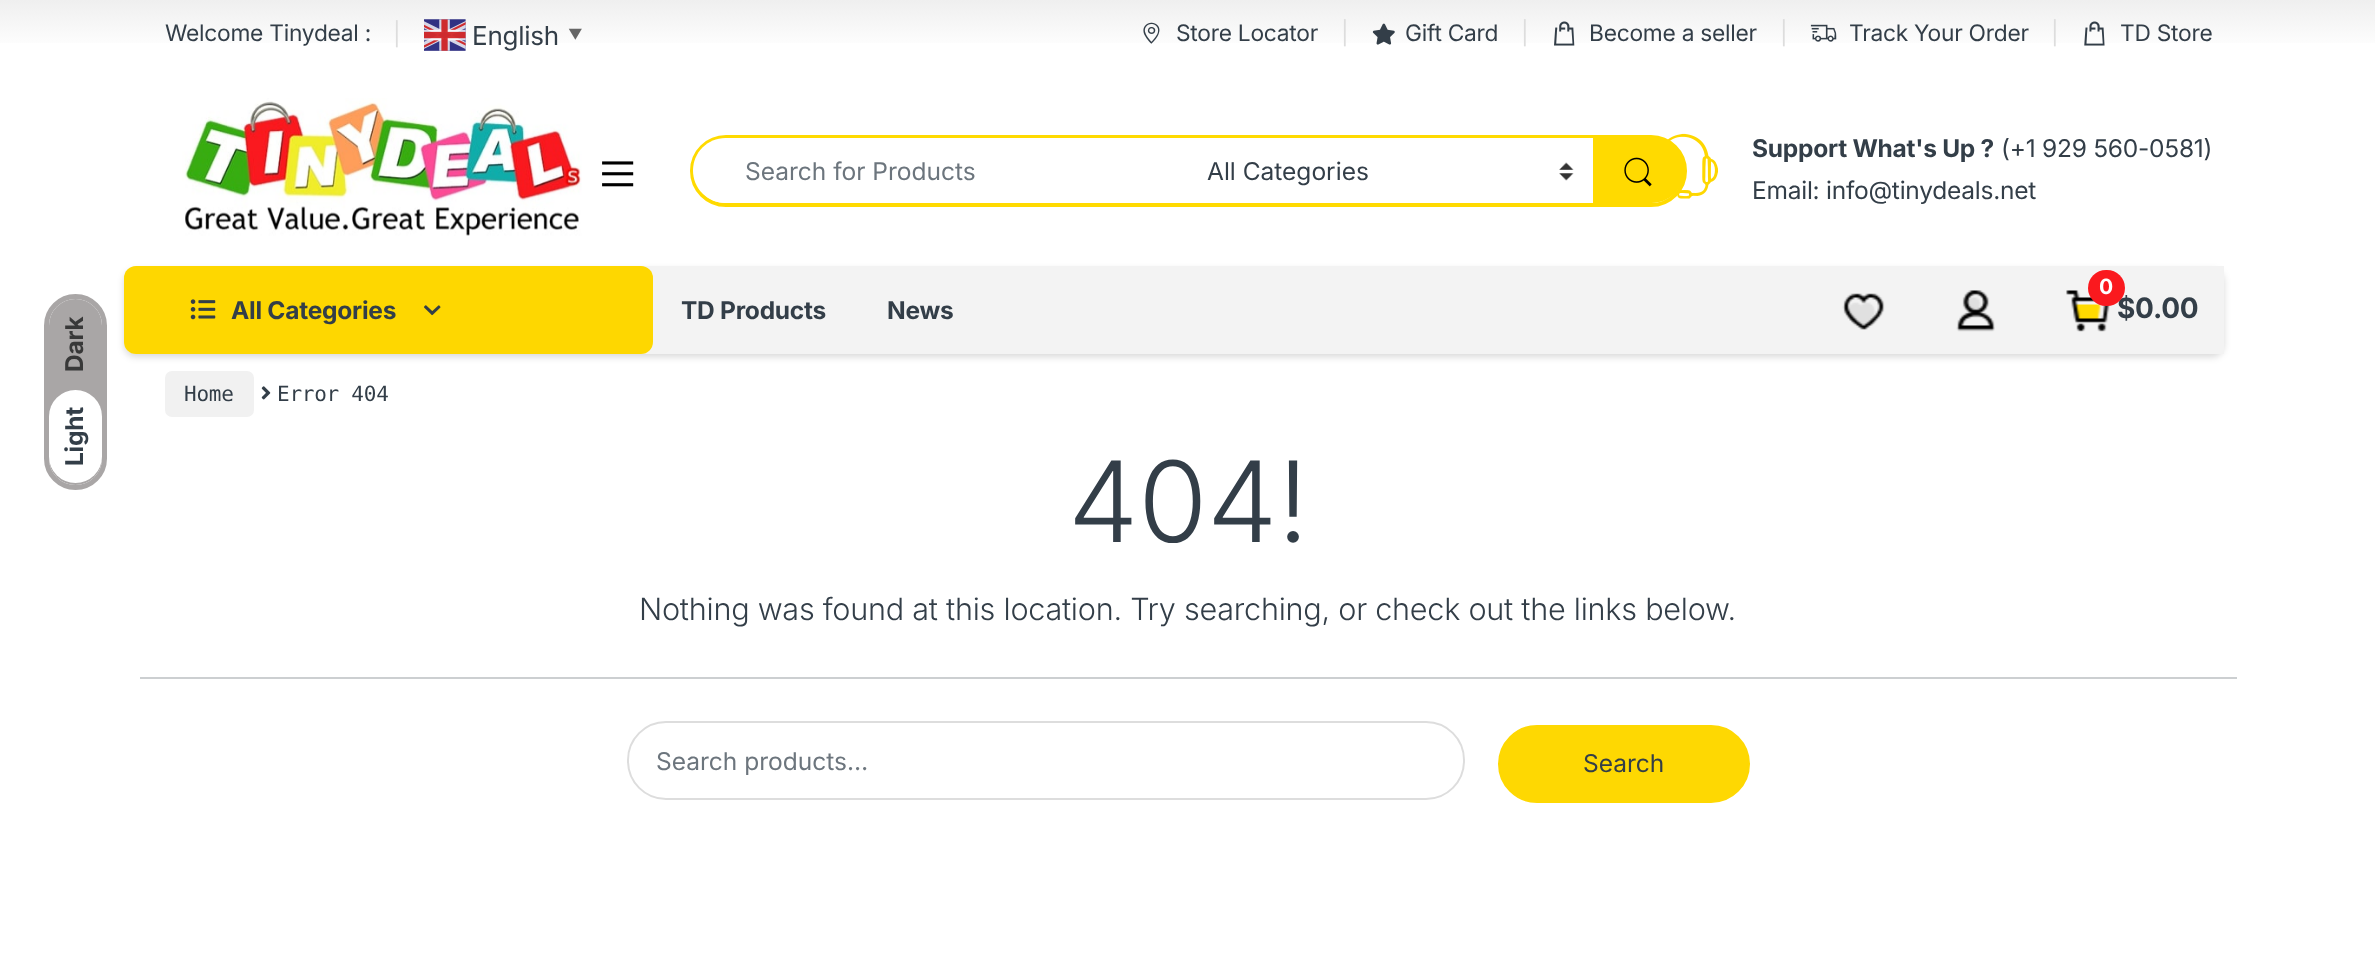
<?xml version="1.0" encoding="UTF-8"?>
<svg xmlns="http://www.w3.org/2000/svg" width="2375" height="964">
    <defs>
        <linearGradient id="g1" gradientUnits="userSpaceOnUse" x1="1188" y1="0" x2="1188" y2="72"><stop offset="0" stop-color="#EFEFEF"/><stop offset="0.7" stop-color="#FFFFFF"/></linearGradient>
        <filter id="blur1" x="-50%" y="-200%" width="200%" height="500%"><feGaussianBlur stdDeviation="3.5"/></filter>
    </defs>
    <rect width="100%" height="100%" fill="#FFFFFF"/>
    <rect x="46.5" y="296.5" width="58" height="191" rx="29" fill="none" stroke="#A9A6A6" stroke-width="5"/>
    <rect x="49" y="299" width="53" height="186" rx="26.5" fill="#A9A6A6"/>
    <text x="83" y="372" transform="rotate(-90 83 372)" font-family="Inter" font-size="24.5" font-weight="700" letter-spacing="-0.25" fill="#383838">Dark</text>
    <rect x="49" y="390" width="53" height="93" rx="26.5" fill="#FFFFFF"/>
    <text x="83" y="466" transform="rotate(-90 83 466)" font-family="Inter" font-size="24.5" font-weight="700" letter-spacing="-0.25" fill="#333E48">Light</text>
    <rect x="0" y="0" width="2375" height="43" fill="url(#g1)"/>
    <text x="165" y="41" font-family="Inter" font-size="22.75" letter-spacing="-0.25" fill="#333E48">Welcome Tinydeal :</text>
    <text x="393" y="42" font-family="Inter" font-size="22.75" letter-spacing="-0.25" fill="#DDDDDD">|</text>
    <image x="424" y="19" width="42" height="32" href="img_01.png"/>
    <text x="472" y="45" font-family="Inter" font-size="26" letter-spacing="-0.25" fill="#333E48">English</text>
    <text x="568" y="39" font-family="Inter" font-size="14" font-weight="700" letter-spacing="-0.25" fill="#666666">▼</text>
    <image x="1143" y="22" width="17" height="22" href="img_02.png"/>
    <text x="1176" y="41" font-family="Inter" font-size="22.75" letter-spacing="-0.25" fill="#333E48">Store Locator</text>
    <text x="1341" y="41" font-family="Inter" font-size="22.75" letter-spacing="-0.25" fill="#DDDDDD">|</text>
    <image x="1372" y="23" width="23" height="22" href="img_03.png"/>
    <text x="1405" y="41" font-family="Inter" font-size="22.75" letter-spacing="-0.25" fill="#333E48">Gift Card</text>
    <text x="1521" y="41" font-family="Inter" font-size="22.75" letter-spacing="-0.25" fill="#DDDDDD">|</text>
    <image x="1554" y="21" width="21" height="25" href="img_04.png"/>
    <text x="1589" y="41" font-family="Inter" font-size="22.75" letter-spacing="-0.25" fill="#333E48">Become a seller</text>
    <text x="1780" y="41" font-family="Inter" font-size="22.75" letter-spacing="-0.25" fill="#DDDDDD">|</text>
    <image x="1810" y="24" width="27" height="18" href="img_05.png"/>
    <text x="1849" y="41" font-family="Inter" font-size="22.75" letter-spacing="-0.25" fill="#333E48">Track Your Order</text>
    <text x="2051" y="41" font-family="Inter" font-size="22.75" letter-spacing="-0.25" fill="#DDDDDD">|</text>
    <image x="2084" y="21" width="21" height="25" href="img_06.png"/>
    <text x="2120" y="41" font-family="Inter" font-size="22.75" letter-spacing="-0.25" fill="#333E48">TD Store</text>
    <image x="182" y="98" width="400" height="138" href="img_07.png"/>
    <image x="602" y="161" width="32" height="26" href="img_08.png"/>
    <image x="1667" y="133" width="51" height="66" href="img_11.png"/>
    <rect x="692" y="137" width="993" height="68" rx="34" fill="none" stroke="#FFDA00" stroke-width="4"/>
    <path d="M 725.5 138 H 1188 V 203 H 725.5 C 707.5 203 693 188.5 693 170.5 C 693 152.5 707.5 138 725.5 138 Z" fill="#FFFFFF"/>
    <text x="745" y="180" font-family="Inter" font-size="24.5" fill="#6C757D">Search for Products</text>
    <rect x="1188" y="138" width="405" height="1" fill="#FFFFFF"/>
    <image x="1559" y="162" width="15" height="19" href="img_09.png"/>
    <text x="1207" y="180" font-family="Inter" font-size="24.5" fill="#333E48">All Categories</text>
    <path d="M 1593 138 H 1651.5 C 1669.5 138 1684 152.5 1684 170.5 C 1684 188.5 1669.5 203 1651.5 203 H 1593 Z" fill="#FFDA00"/>
    <image x="1624" y="157" width="28" height="30" href="img_10.png"/>
    <text x="1752" y="157" font-family="Inter" font-size="24.5" font-weight="700" letter-spacing="-0.25" fill="#333E48">Support What's Up ?</text>
    <text x="2001" y="157" font-family="Inter" font-size="24.5" letter-spacing="-0.25" fill="#333E48">(+1 929 560-0581)</text>
    <text x="1752" y="199" font-family="Inter" font-size="24.5" letter-spacing="-0.25" fill="#333E48">Email: info@tinydeals.net</text>
    <rect x="124" y="270" width="2100" height="87" rx="12" fill="#000000" fill-opacity="0.15" filter="url(#blur1)"/>
    <path d="M 136 266 H 2224 V 354 H 136 C 129.5 354 124 348.5 124 342 V 278 C 124 271.5 129.5 266 136 266 Z" fill="#F3F3F3"/>
    <rect x="124" y="266" width="529" height="88" rx="12" fill="#FED700"/>
    <image x="190" y="299" width="26" height="21" href="img_12.png"/>
    <text x="231" y="319" font-family="Inter" font-size="24.5" font-weight="700" letter-spacing="-0.25" fill="#333E48">All Categories</text>
    <image x="424" y="305" width="17" height="11" href="img_13.png"/>
    <text x="681" y="319" font-family="Inter" font-size="24.5" font-weight="700" letter-spacing="-0.25" fill="#333E48">TD Products</text>
    <text x="887" y="319" font-family="Inter" font-size="24.5" font-weight="700" letter-spacing="-0.25" fill="#333E48">News</text>
    <image x="1842" y="293" width="43" height="37" href="img_14.png"/>
    <image x="1956" y="290" width="39" height="42" href="img_15.png"/>
    <image x="2066" y="290" width="44" height="42" href="img_16.png"/>
    <text x="2117" y="318" font-family="Inter" font-size="28" font-weight="700" letter-spacing="-0.25" fill="#333E48">$0.00</text>
    <rect x="2088" y="270" width="37" height="36" rx="18" fill="#FA191E"/>
    <text x="2099" y="294" font-family="Inter" font-size="21" font-weight="700" letter-spacing="-0.25" fill="#FFFFFF">0</text>
    <rect x="165" y="371" width="89" height="46" rx="7" fill="#F1F1F1"/>
    <text x="184" y="401" font-family="DejaVu Sans Mono" font-size="21" letter-spacing="-0.25" fill="#333E48">Home</text>
    <image x="261" y="386" width="10" height="14" href="img_17.png"/>
    <text x="277" y="401" font-family="DejaVu Sans Mono" font-size="21" letter-spacing="-0.25" fill="#333E48">Error 404</text>
    <text x="1068" y="542" font-family="Inter" font-size="112" font-weight="300" letter-spacing="-0.25" fill="#333E48">404!</text>
    <text x="639" y="620" font-family="Inter" font-size="30.6" font-weight="300" letter-spacing="-0.25" fill="#333E48">Nothing was found at this location. Try searching, or check out the links below.</text>
    <rect x="140" y="677" width="2097" height="2" fill="#CCCFD1"/>
    <rect x="628" y="722" width="836" height="77" rx="38" fill="none" stroke="#DDDDDD" stroke-width="2"/>
    <text x="656" y="770" font-family="Inter" font-size="24.5" fill="#6C757D">Search products…</text>
    <rect x="1499" y="726" width="250" height="76" rx="38" fill="#FED802" stroke="#FED802" stroke-width="2"/>
    <text x="1583" y="772" font-family="Inter" font-size="24.5" fill="#333E48">Search</text>
</svg>
